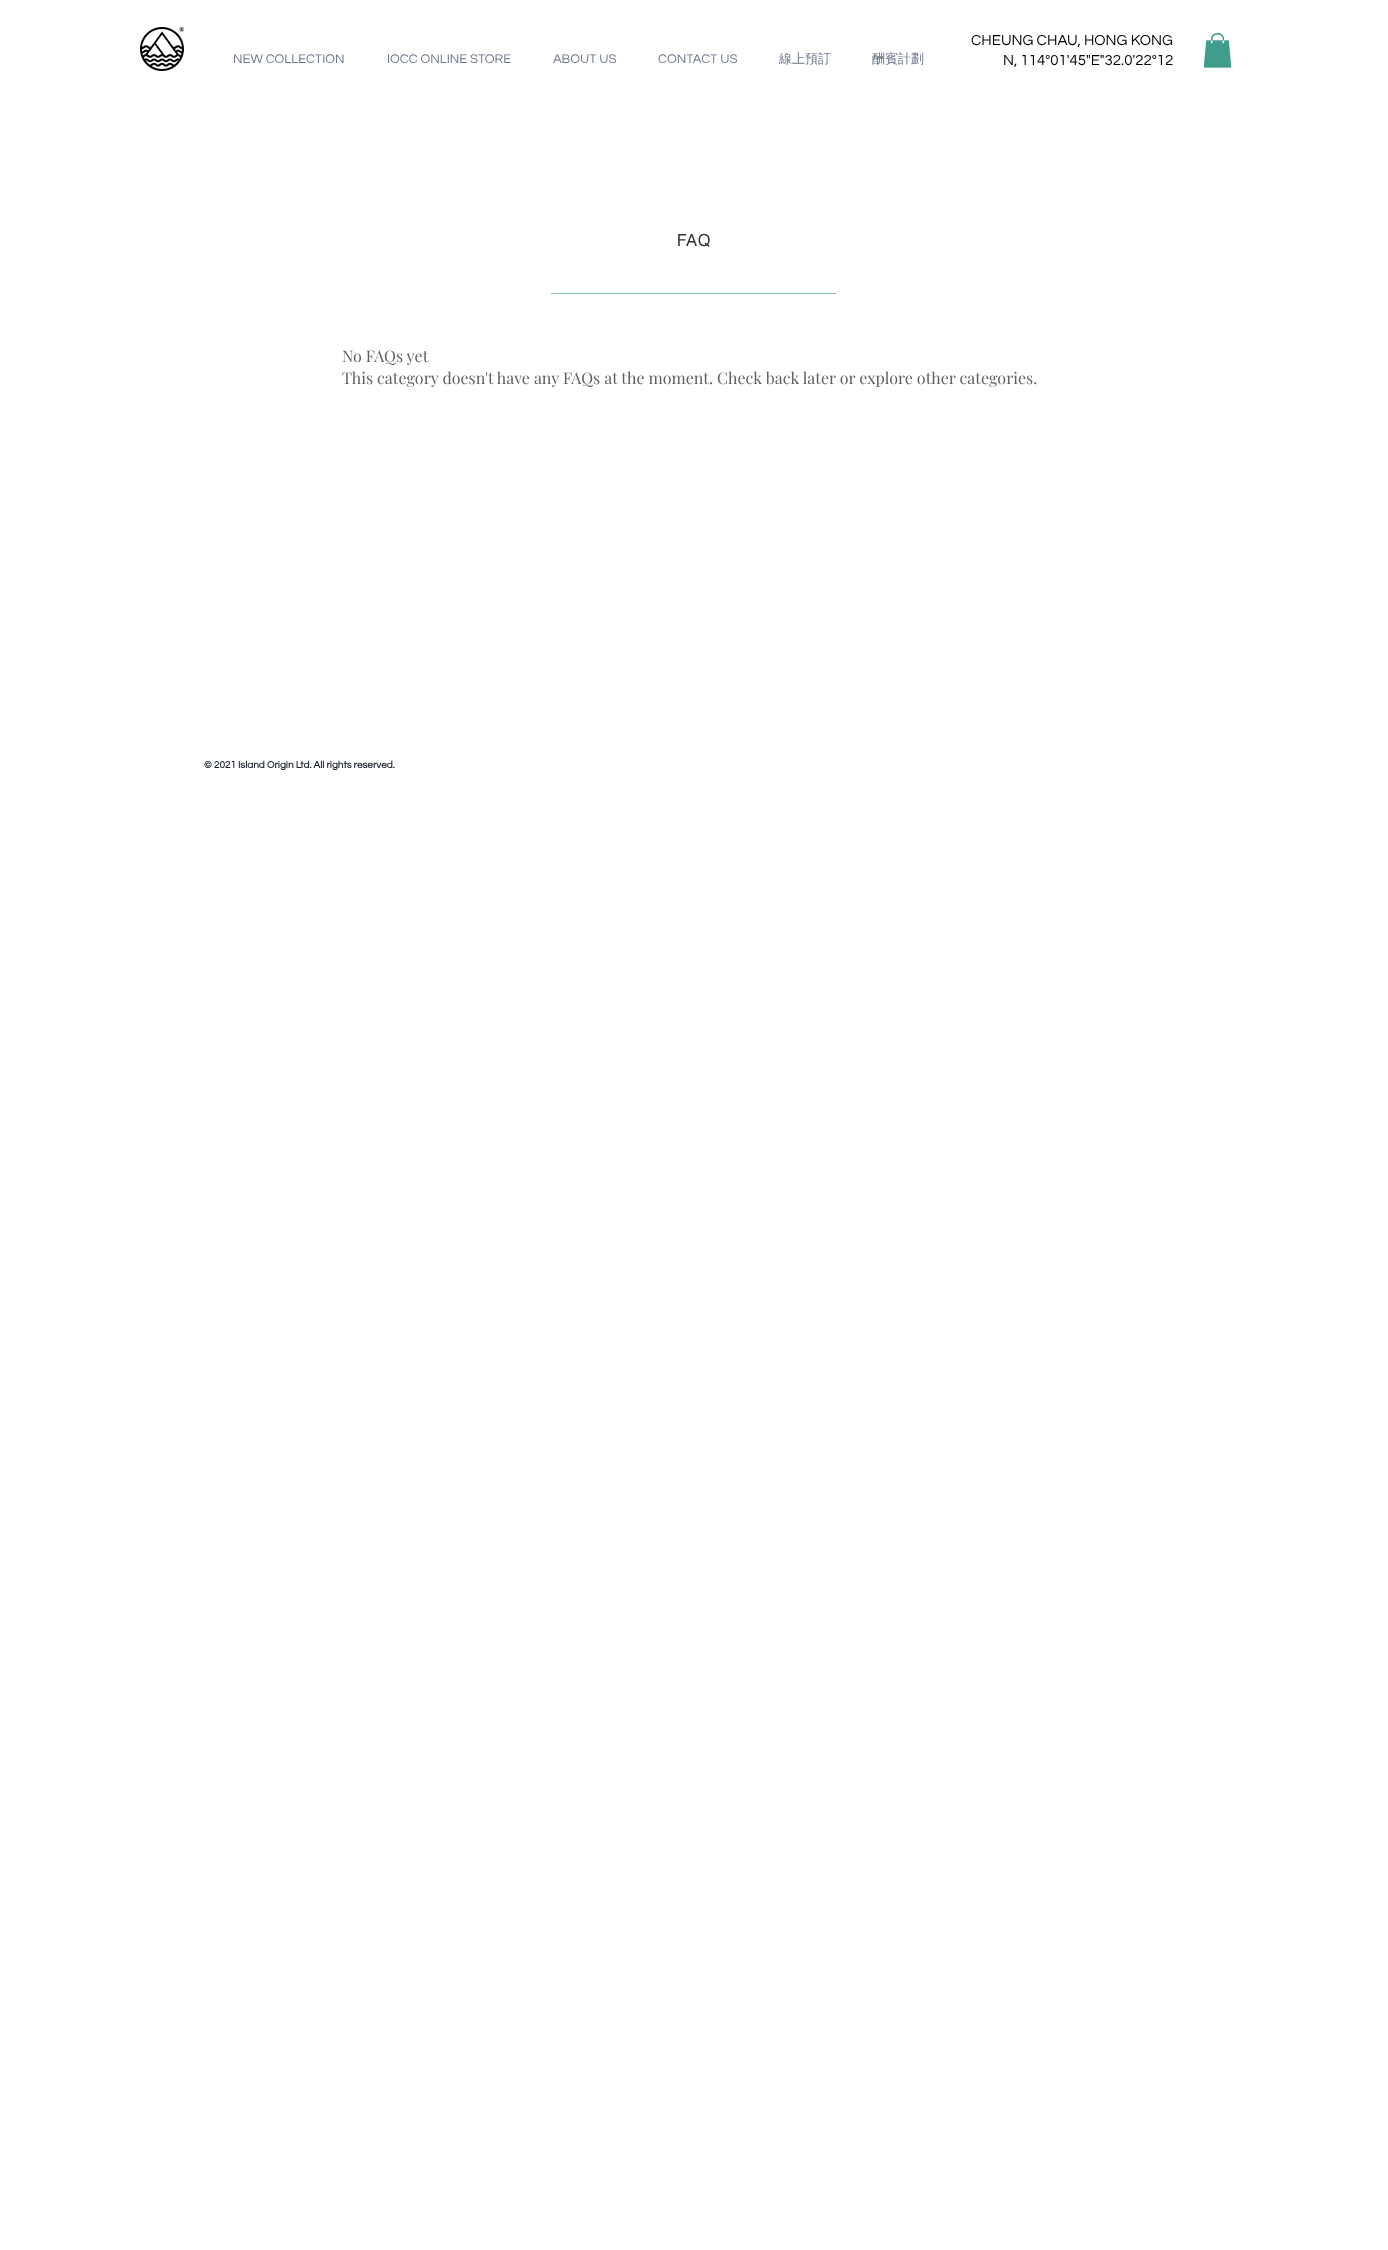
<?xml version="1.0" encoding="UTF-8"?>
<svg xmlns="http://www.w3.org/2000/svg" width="1388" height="2250">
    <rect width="100%" height="100%" fill="#FFFFFF"/>
    <image x="140" y="27" width="44" height="44" href="img_01.png"/>
    <text x="233" y="63" font-family="Questrial" font-size="13" fill="#697386">NEW COLLECTION</text>
    <text x="387" y="63" font-family="Questrial" font-size="13" fill="#697386">IOCC ONLINE STORE</text>
    <text x="553" y="63" font-family="Questrial" font-size="13" fill="#697386">ABOUT US</text>
    <text x="658" y="63" font-family="Questrial" font-size="13" fill="#697386">CONTACT US</text>
    <text x="779" y="63" font-family="WenQuanYi Zen Hei" font-size="13" font-weight="500" fill="#697386">線上預訂</text>
    <text x="872" y="63" font-family="WenQuanYi Zen Hei" font-size="13" font-weight="500" fill="#697386">酬賓計劃</text>
    <text x="971" y="45" font-family="Questrial" font-size="15" fill="#000000">CHEUNG CHAU, HONG KONG</text>
    <text x="1003" y="65" font-family="Questrial" font-size="15" fill="#000000">N, 114°01'45"E"32.0'22°12</text>
    <image x="1203" y="33" width="29" height="35" href="img_02.png"/>
    <text x="677" y="246" font-family="helvetica" font-size="16" font-weight="700" letter-spacing="1" fill="#2F2F30">FAQ</text>
    <rect x="551" y="293" width="285" height="1" fill="#85BDB3"/>
    <text font-family="Playfair Display" font-size="16" fill="#5F5E61">
        <tspan x="342" y="362">No FAQs yet</tspan>
        <tspan x="342" y="384">This category doesn't have any FAQs at the moment. Check back later or explore other categories.</tspan>
    </text>
    <text x="204" y="768" font-family="Questrial" font-size="10" font-weight="700" fill="#1B222F">© 2021 Island Origin Ltd. All rights reserved.</text>
</svg>
